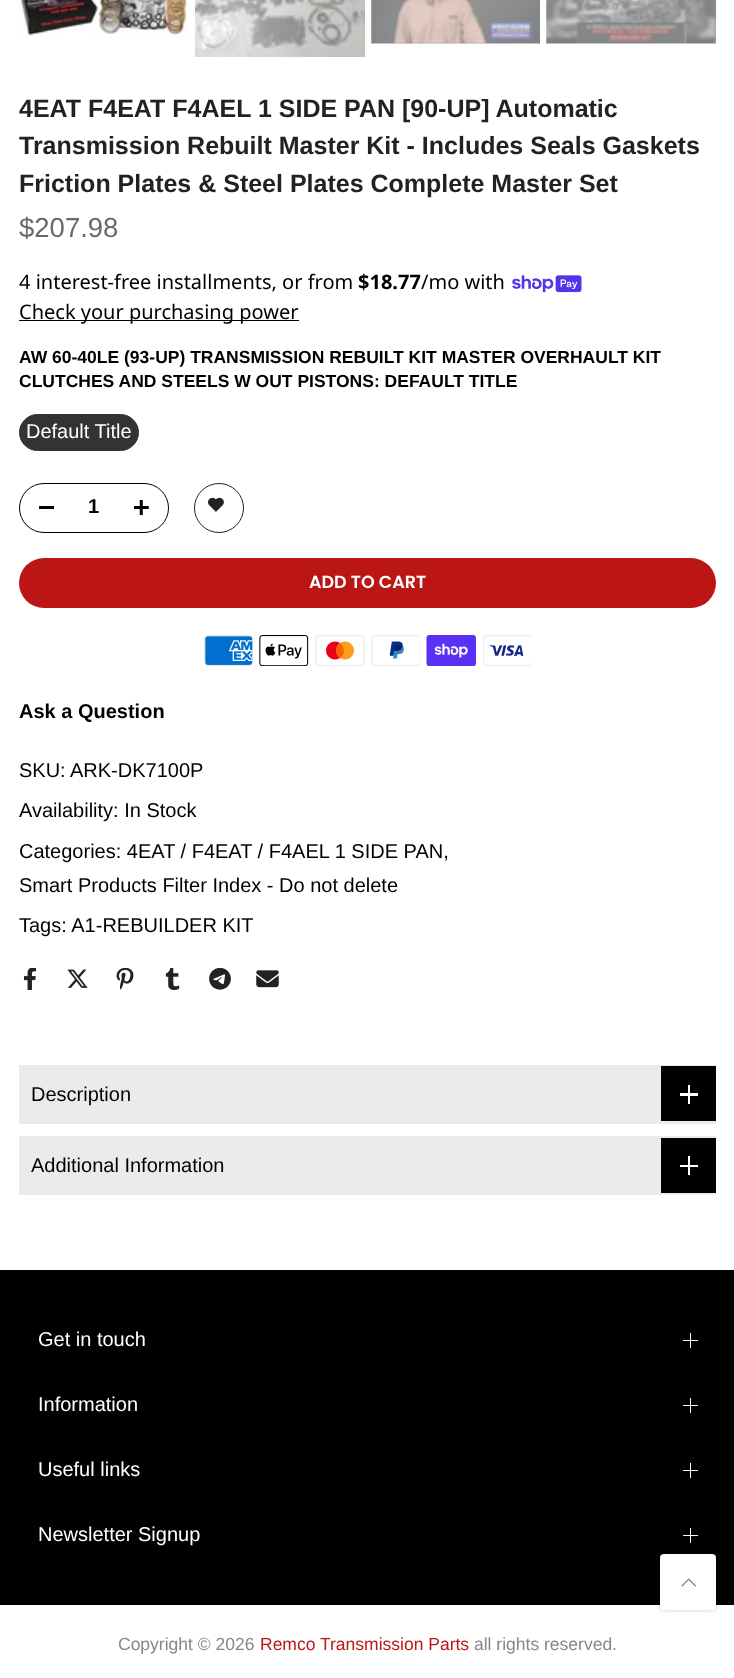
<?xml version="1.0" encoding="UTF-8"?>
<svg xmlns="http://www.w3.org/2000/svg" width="734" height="1678">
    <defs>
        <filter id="blur1" x="-50%" y="-200%" width="200%" height="500%"><feGaussianBlur stdDeviation="2"/></filter>
    </defs>
    <rect width="100%" height="100%" fill="#FFFFFF"/>
    <image x="19" y="0" width="170" height="39" href="img_01.png"/>
    <image x="195" y="0" width="170" height="57" href="img_02.png"/>
    <image x="371" y="0" width="169" height="44" href="img_03.png"/>
    <image x="546" y="0" width="171" height="44" href="img_04.png"/>
    <text font-family="Liberation Sans" font-size="25" font-weight="700" fill="#222222">
        <tspan x="19" y="117">4EAT F4EAT F4AEL 1 SIDE PAN [90-UP] Automatic</tspan>
        <tspan x="19" y="154">Transmission Rebuilt Master Kit - Includes Seals Gaskets</tspan>
        <tspan x="19" y="192">Friction Plates &amp; Steel Plates Complete Master Set</tspan>
    </text>
    <text x="19" y="237" font-family="Liberation Sans" font-size="27.5" fill="#696969">$207.98</text>
    <text x="19" y="289" font-family="Noto Sans" font-size="20" fill="#000000">4 interest-free installments, or from</text>
    <text x="358" y="289" font-family="Noto Sans" font-size="20" font-weight="700" fill="#000000">$18.77</text>
    <text x="421" y="289" font-family="Noto Sans" font-size="20" fill="#000000">/mo with</text>
    <image x="512" y="275" width="70" height="18" href="img_05.png"/>
    <rect x="19" y="320" width="280" height="1" fill="#000000"/>
    <text x="19" y="319" font-family="Noto Sans" font-size="20" fill="#000000">Check your purchasing power</text>
    <text font-family="Liberation Sans" font-size="17.5" font-weight="700" fill="#000000">
        <tspan x="19" y="363">AW 60-40LE (93-UP) TRANSMISSION REBUILT KIT MASTER OVERHAULT KIT</tspan>
        <tspan x="19" y="387">CLUTCHES AND STEELS W OUT PISTONS: DEFAULT TITLE</tspan>
    </text>
    <rect x="19.5" y="414.5" width="119" height="36" rx="18" fill="#333333" stroke="#333333"/>
    <text x="26" y="438" font-family="Liberation Sans" font-size="20" fill="#FFFFFF">Default Title</text>
    <rect x="19.5" y="483.5" width="149" height="49" rx="24.5" fill="none" stroke="#000000"/>
    <rect x="39" y="506" width="15" height="3" fill="#000000"/>
    <text x="88" y="513" font-family="Liberation Sans" font-size="20" font-weight="700" fill="#000000">1</text>
    <image x="134" y="500" width="15" height="15" href="img_06.png"/>
    <circle cx="219" cy="508" r="24.5" fill="none" stroke="#222222"/>
    <image x="208" y="497" width="16" height="15" href="img_07.png"/>
    <rect x="19" y="558" width="697" height="50" rx="25" fill="#BC1515"/>
    <text x="309" y="588" font-family="Poppins" font-size="17.5" font-weight="600" fill="#FFFFFF">ADD TO CART</text>
    <image x="204" y="635" width="49" height="31" href="img_08.png"/>
    <image x="259" y="635" width="50" height="31" href="img_09.png"/>
    <image x="315" y="635" width="50" height="31" href="img_10.png"/>
    <image x="371" y="635" width="49" height="31" href="img_11.png"/>
    <image x="426" y="635" width="50" height="31" href="img_12.png"/>
    <image x="483" y="635" width="48" height="31" href="img_13.png"/>
    <text x="19" y="718" font-family="Liberation Sans" font-size="20" font-weight="700" fill="#000000">Ask a Question</text>
    <text x="19" y="777" font-family="Liberation Sans" font-size="20" fill="#000000">SKU:</text>
    <text x="70" y="777" font-family="Liberation Sans" font-size="20" fill="#000000">ARK-DK7100P</text>
    <text x="19" y="817" font-family="Liberation Sans" font-size="20" fill="#000000">Availability: In Stock</text>
    <text font-family="Liberation Sans" font-size="20" fill="#000000">
        <tspan x="19" y="858">Categories: 4EAT / F4EAT / F4AEL 1 SIDE PAN,</tspan>
        <tspan x="19" y="892">Smart Products Filter Index - Do not delete</tspan>
    </text>
    <text x="19" y="932" font-family="Liberation Sans" font-size="20" fill="#000000">Tags: A1-REBUILDER KIT</text>
    <image x="23" y="968" width="14" height="22" href="img_14.png"/>
    <image x="67" y="969" width="21" height="19" href="img_15.png"/>
    <image x="116" y="968" width="18" height="22" href="img_16.png"/>
    <image x="165" y="968" width="15" height="22" href="img_17.png"/>
    <image x="209" y="968" width="22" height="22" href="img_18.png"/>
    <image x="256" y="970" width="23" height="18" href="img_19.png"/>
    <rect x="19" y="1065" width="697" height="59" fill="#EBEBEB"/>
    <text x="31" y="1101" font-family="Liberation Sans" font-size="20" fill="#000000">Description</text>
    <rect x="661" y="1066" width="55" height="55" fill="#000000"/>
    <rect x="688" y="1085" width="2" height="19" fill="#FFFFFF"/>
    <rect x="680" y="1093" width="18" height="3" fill="#FFFFFF"/>
    <rect x="19" y="1136" width="697" height="59" fill="#EBEBEB"/>
    <text x="31" y="1172" font-family="Liberation Sans" font-size="20" fill="#000000">Additional Information</text>
    <rect x="661" y="1138" width="55" height="55" fill="#000000"/>
    <rect x="688" y="1156" width="2" height="19" fill="#FFFFFF"/>
    <rect x="680" y="1165" width="18" height="2" fill="#FFFFFF"/>
    <rect x="0" y="1270" width="734" height="335" fill="#000000"/>
    <text x="38" y="1346" font-family="Liberation Sans" font-size="20" fill="#FFFFFF">Get in touch</text>
    <rect x="690" y="1333" width="1" height="15" fill="#FFFFFF"/>
    <rect x="683" y="1340" width="15" height="1" fill="#FFFFFF"/>
    <text x="38" y="1411" font-family="Liberation Sans" font-size="20" fill="#FFFFFF">Information</text>
    <rect x="690" y="1398" width="1" height="15" fill="#FFFFFF"/>
    <rect x="683" y="1405" width="15" height="1" fill="#FFFFFF"/>
    <text x="38" y="1476" font-family="Liberation Sans" font-size="20" fill="#FFFFFF">Useful links</text>
    <rect x="690" y="1463" width="1" height="15" fill="#FFFFFF"/>
    <rect x="683" y="1470" width="15" height="1" fill="#FFFFFF"/>
    <text x="38" y="1541" font-family="Liberation Sans" font-size="20" fill="#FFFFFF">Newsletter Signup</text>
    <rect x="690" y="1528" width="1" height="15" fill="#FFFFFF"/>
    <rect x="683" y="1535" width="15" height="1" fill="#FFFFFF"/>
    <text x="118" y="1650" font-family="Liberation Sans" font-size="17.5" fill="#878787">Copyright © 2026</text>
    <text x="260" y="1650" font-family="Liberation Sans" font-size="17.5" fill="#BC1515">Remco Transmission Parts</text>
    <text x="474" y="1650" font-family="Liberation Sans" font-size="17.5" fill="#878787">all rights reserved.</text>
    <rect x="660" y="1554" width="56" height="56" rx="4" fill="#000000" fill-opacity="0.2" filter="url(#blur1)"/>
    <rect x="660" y="1554" width="56" height="56" rx="4" fill="#FFFFFF"/>
    <image x="681" y="1578" width="15" height="9" href="img_20.png"/>
</svg>
